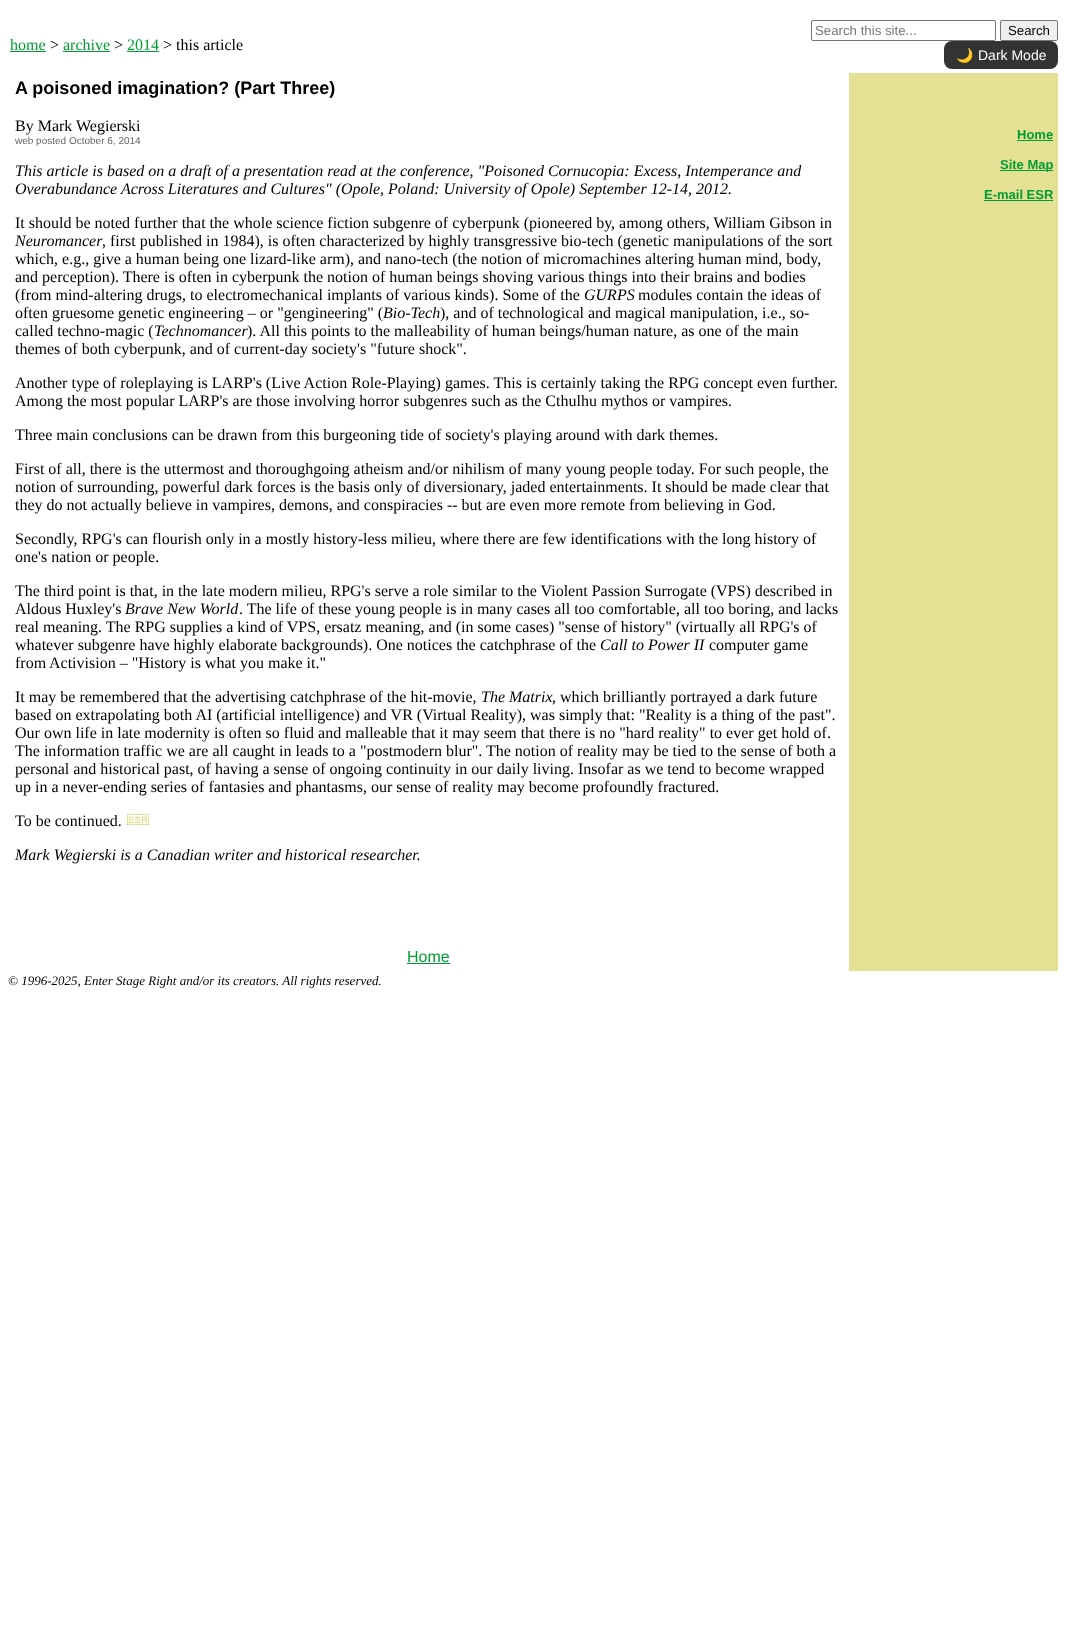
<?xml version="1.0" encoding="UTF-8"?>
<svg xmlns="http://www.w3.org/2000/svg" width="1068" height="1629">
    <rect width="100%" height="100%" fill="#FFFFFF"/>
    <text x="10" y="50" font-family="Liberation Serif" font-size="16" fill="#009D33">home</text>
    <rect x="10" y="51" width="36" height="1" fill="#009D33"/>
    <text x="50" y="50" font-family="Liberation Serif" font-size="16" fill="#000000">&gt;</text>
    <text x="63" y="50" font-family="Liberation Serif" font-size="16" fill="#009D33">archive</text>
    <rect x="63" y="51" width="47" height="1" fill="#009D33"/>
    <text x="114" y="50" font-family="Liberation Serif" font-size="16" fill="#000000">&gt;</text>
    <text x="127" y="50" font-family="Liberation Serif" font-size="16" fill="#009D33">2014</text>
    <rect x="127" y="51" width="32" height="1" fill="#009D33"/>
    <text x="163" y="50" font-family="Liberation Serif" font-size="16" fill="#000000">&gt; this article</text>
    <rect x="811.5" y="20.5" width="184" height="20" rx="1.5" fill="none" stroke="#767676"/>
    <text x="815" y="35" font-family="Liberation Sans" font-size="13.25" fill="#757575">Search this site...</text>
    <rect x="1000.5" y="20.5" width="57" height="20" rx="1.5" fill="#EFEFEF" stroke="#767676"/>
    <text x="1008" y="35" font-family="Liberation Sans" font-size="13.25" fill="#000000">Search</text>
    <rect x="944" y="41" width="114" height="28" rx="8" fill="#333333"/>
    <text x="956" y="60" font-family="Noto Color Emoji" font-size="14" fill="#FFFFFF">🌙</text>
    <text x="978" y="60" font-family="Liberation Sans" font-size="14" fill="#FFFFFF">Dark Mode</text>
    <text x="15" y="94" font-family="Liberation Sans" font-size="18" font-weight="700" fill="#000000">A poisoned imagination? (Part Three)</text>
    <text x="15" y="131" font-family="Liberation Serif" font-size="16" fill="#000000">By Mark Wegierski</text>
    <text x="15" y="144" font-family="Liberation Sans" font-size="10" fill="#666666">web posted October 6, 2014</text>
    <text font-family="Liberation Serif" font-size="16" font-style="italic" fill="#000000">
        <tspan x="15" y="176">This article is based on a draft of a presentation read at the conference, "Poisoned Cornucopia: Excess, Intemperance and</tspan>
        <tspan x="15" y="194">Overabundance Across Literatures and Cultures" (Opole, Poland: University of Opole) September 12-14, 2012.</tspan>
    </text>
    <text x="15" y="228" font-family="Liberation Serif" font-size="16" fill="#000000">It should be noted further that the whole science fiction subgenre of cyberpunk (pioneered by, among others, William Gibson in</text>
    <text x="15" y="246" font-family="Liberation Serif" font-size="16" font-style="italic" fill="#000000">Neuromancer</text>
    <text x="102" y="246" font-family="Liberation Serif" font-size="16" fill="#000000">, first published in 1984), is often characterized by highly transgressive bio-tech (genetic manipulations of the sort</text>
    <text font-family="Liberation Serif" font-size="16" fill="#000000">
        <tspan x="15" y="264">which, e.g., give a human being one lizard-like arm), and nano-tech (the notion of micromachines altering human mind, body,</tspan>
        <tspan x="15" y="282">and perception). There is often in cyberpunk the notion of human beings shoving various things into their brains and bodies</tspan>
        <tspan x="15" y="300">(from mind-altering drugs, to electromechanical implants of various kinds). Some of the</tspan>
    </text>
    <text x="584" y="300" font-family="Liberation Serif" font-size="16" font-style="italic" fill="#000000">GURPS</text>
    <text x="638" y="300" font-family="Liberation Serif" font-size="16" fill="#000000">modules contain the ideas of</text>
    <text x="15" y="318" font-family="Liberation Serif" font-size="16" fill="#000000">often gruesome genetic engineering – or "gengineering" (</text>
    <text x="383" y="318" font-family="Liberation Serif" font-size="16" font-style="italic" fill="#000000">Bio-Tech</text>
    <text x="440" y="318" font-family="Liberation Serif" font-size="16" fill="#000000">), and of technological and magical manipulation, i.e., so-</text>
    <text x="15" y="336" font-family="Liberation Serif" font-size="16" fill="#000000">called techno-magic (</text>
    <text x="154" y="336" font-family="Liberation Serif" font-size="16" font-style="italic" fill="#000000">Technomancer</text>
    <text x="247" y="336" font-family="Liberation Serif" font-size="16" fill="#000000">). All this points to the malleability of human beings/human nature, as one of the main</text>
    <text x="15" y="354" font-family="Liberation Serif" font-size="16" fill="#000000">themes of both cyberpunk, and of current-day society's "future shock".</text>
    <text font-family="Liberation Serif" font-size="16" fill="#000000">
        <tspan x="15" y="388">Another type of roleplaying is LARP's (Live Action Role-Playing) games. This is certainly taking the RPG concept even further.</tspan>
        <tspan x="15" y="406">Among the most popular LARP's are those involving horror subgenres such as the Cthulhu mythos or vampires.</tspan>
    </text>
    <text x="15" y="440" font-family="Liberation Serif" font-size="16" fill="#000000">Three main conclusions can be drawn from this burgeoning tide of society's playing around with dark themes.</text>
    <text font-family="Liberation Serif" font-size="16" fill="#000000">
        <tspan x="15" y="474">First of all, there is the uttermost and thoroughgoing atheism and/or nihilism of many young people today. For such people, the</tspan>
        <tspan x="15" y="492">notion of surrounding, powerful dark forces is the basis only of diversionary, jaded entertainments. It should be made clear that</tspan>
        <tspan x="15" y="510">they do not actually believe in vampires, demons, and conspiracies -- but are even more remote from believing in God.</tspan>
    </text>
    <text font-family="Liberation Serif" font-size="16" fill="#000000">
        <tspan x="15" y="544">Secondly, RPG's can flourish only in a mostly history-less milieu, where there are few identifications with the long history of</tspan>
        <tspan x="15" y="562">one's nation or people.</tspan>
    </text>
    <text font-family="Liberation Serif" font-size="16" fill="#000000">
        <tspan x="15" y="596">The third point is that, in the late modern milieu, RPG's serve a role similar to the Violent Passion Surrogate (VPS) described in</tspan>
        <tspan x="15" y="614">Aldous Huxley's</tspan>
    </text>
    <text x="125" y="614" font-family="Liberation Serif" font-size="16" font-style="italic" fill="#000000">Brave New World</text>
    <text x="239" y="614" font-family="Liberation Serif" font-size="16" fill="#000000">. The life of these young people is in many cases all too comfortable, all too boring, and lacks</text>
    <text font-family="Liberation Serif" font-size="16" fill="#000000">
        <tspan x="15" y="632">real meaning. The RPG supplies a kind of VPS, ersatz meaning, and (in some cases) "sense of history" (virtually all RPG's of</tspan>
        <tspan x="15" y="650">whatever subgenre have highly elaborate backgrounds). One notices the catchphrase of the</tspan>
    </text>
    <text x="600" y="650" font-family="Liberation Serif" font-size="16" font-style="italic" fill="#000000">Call to Power II</text>
    <text x="709" y="650" font-family="Liberation Serif" font-size="16" fill="#000000">computer game</text>
    <text x="15" y="668" font-family="Liberation Serif" font-size="16" fill="#000000">from</text>
    <text x="49" y="668" font-family="Liberation Serif" font-size="16" fill="#000000">Activision – "History is what you make it."</text>
    <text x="15" y="702" font-family="Liberation Serif" font-size="16" fill="#000000">It may be remembered that the advertising catchphrase of the hit-movie,</text>
    <text x="481" y="702" font-family="Liberation Serif" font-size="16" font-style="italic" fill="#000000">The Matrix</text>
    <text x="552" y="702" font-family="Liberation Serif" font-size="16" fill="#000000">, which brilliantly portrayed a dark future</text>
    <text font-family="Liberation Serif" font-size="16" fill="#000000">
        <tspan x="15" y="720">based on extrapolating both AI (artificial intelligence) and VR (Virtual Reality), was simply that: "Reality is a thing of the past".</tspan>
        <tspan x="15" y="738">Our own life in late modernity is often so fluid and malleable that it may seem that there is no "hard reality" to ever get hold of.</tspan>
        <tspan x="15" y="756">The information traffic we are all caught in leads to a "postmodern blur". The notion of reality may be tied to the sense of both a</tspan>
        <tspan x="15" y="774">personal and historical past, of having a sense of ongoing continuity in our daily living. Insofar as we tend to become wrapped</tspan>
        <tspan x="15" y="792">up in a never-ending series of fantasies and phantasms, our sense of reality may become profoundly fractured.</tspan>
    </text>
    <text x="15" y="826" font-family="Liberation Serif" font-size="16" fill="#000000">To be continued.</text>
    <image x="126" y="813" width="24" height="13" href="img_01.png"/>
    <text x="15" y="860" font-family="Liberation Serif" font-size="16" font-style="italic" fill="#000000">Mark Wegierski is a Canadian writer and historical researcher.</text>
    <text x="407" y="962" font-family="Liberation Sans" font-size="16" fill="#009D33">Home</text>
    <rect x="407" y="963" width="43" height="1" fill="#009D33"/>
    <rect x="849" y="73" width="209" height="898" fill="#E4E094"/>
    <text x="1017" y="139" font-family="Liberation Sans" font-size="13" font-weight="700" fill="#009D33">Home</text>
    <rect x="1017" y="140" width="36" height="1" fill="#009D33"/>
    <rect x="1000" y="170" width="53" height="1" fill="#009D33"/>
    <text x="1000" y="169" font-family="Liberation Sans" font-size="13" font-weight="700" fill="#009D33">Site Map</text>
    <text x="984" y="199" font-family="Liberation Sans" font-size="13" font-weight="700" fill="#009D33">E-mail ESR</text>
    <rect x="984" y="200" width="69" height="1" fill="#009D33"/>
    <text x="8" y="985" font-family="Liberation Serif" font-size="13" font-style="italic" fill="#000000">© 1996-2025, Enter Stage Right and/or its creators. All rights reserved.</text>
</svg>
